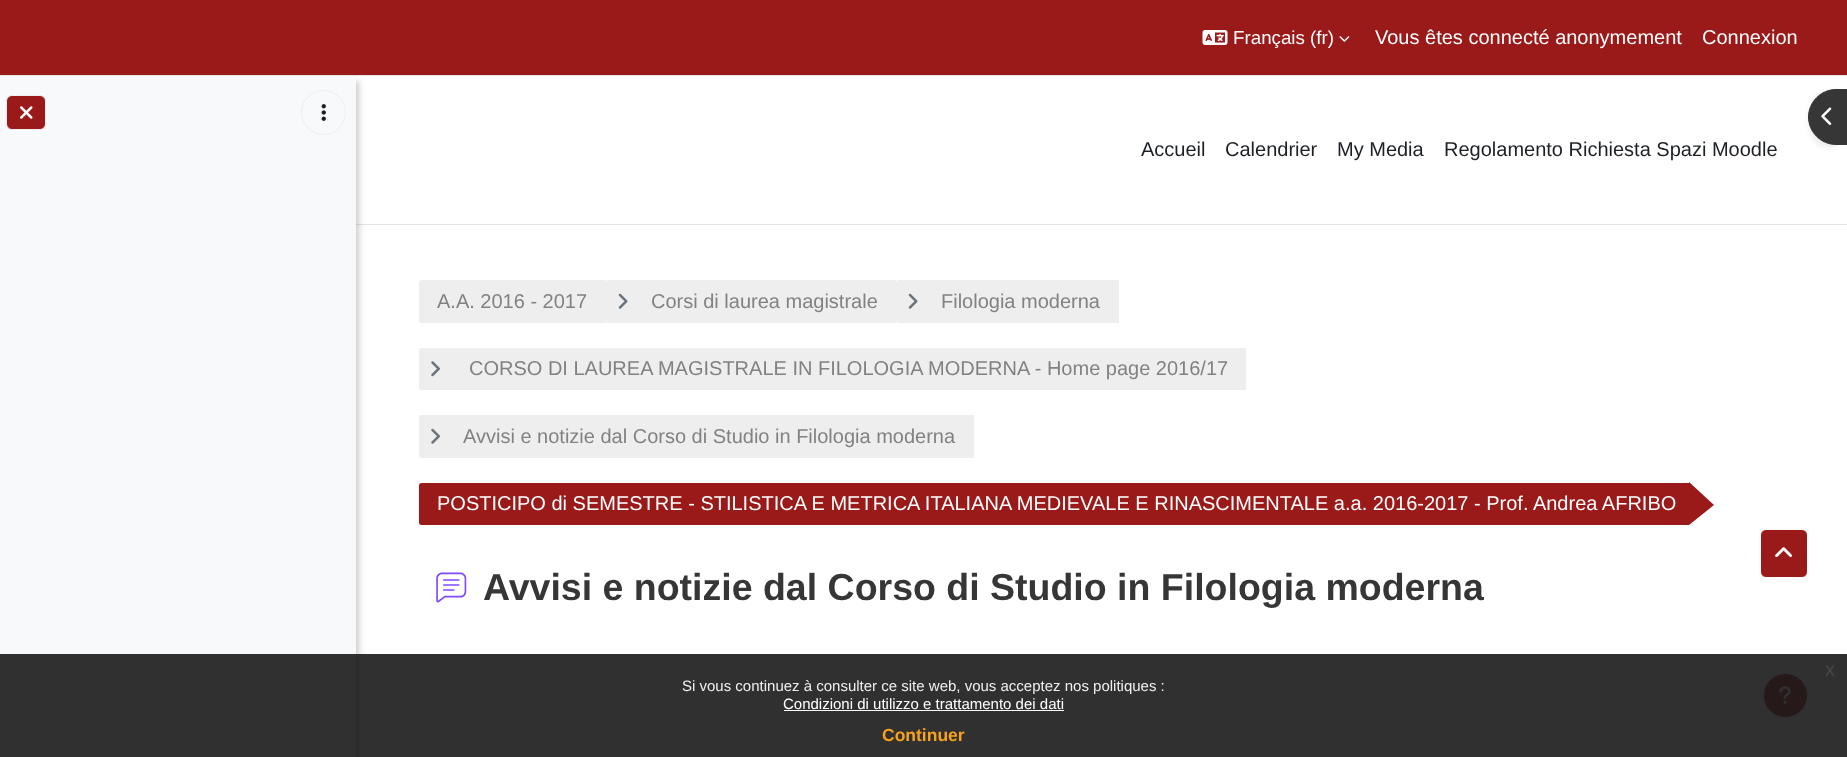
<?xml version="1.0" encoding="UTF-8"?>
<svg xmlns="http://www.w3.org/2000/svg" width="1847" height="757">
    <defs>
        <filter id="blur1" x="-50%" y="-200%" width="200%" height="500%"><feGaussianBlur stdDeviation="3"/></filter>
        <filter id="blur2" x="-50%" y="-200%" width="200%" height="500%"><feGaussianBlur stdDeviation="2.5"/></filter>
        <clipPath id="clip1"><rect x="419" y="550" width="1065" height="75"/></clipPath>
    </defs>
    <rect width="100%" height="100%" fill="#FFFFFF"/>
    <rect x="356" y="224" width="1491" height="1" fill="#E8E3E3"/>
    <rect x="3" y="81" width="356" height="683" fill="#000000" fill-opacity="0.2" filter="url(#blur1)"/>
    <rect x="0" y="0" width="1847" height="75" fill="#9A1919"/>
    <rect x="0" y="75" width="1847" height="1" fill="#E8E3E3"/>
    <image x="1202" y="30" width="26" height="15" href="img_01.png"/>
    <text x="1233" y="44" font-family="Liberation Sans" font-size="18.75" fill="#FFFFFF">Français (fr)</text>
    <image x="1339" y="36" width="11" height="6" href="img_02.png"/>
    <text x="1375" y="44" font-family="Liberation Sans" font-size="20" fill="#FFFFFF">Vous êtes connecté anonymement</text>
    <text x="1702" y="44" font-family="Liberation Sans" font-size="20" fill="#FFFFFF">Connexion</text>
    <rect x="0" y="76" width="356" height="681" fill="#F8F9FA"/>
    <rect x="6.5" y="95.5" width="39" height="34" rx="5.5" fill="#9A1919" stroke="#EEEEEE"/>
    <image x="20" y="106" width="13" height="13" href="img_03.png"/>
    <circle cx="323.5" cy="112.5" r="22" fill="none" stroke="#EEEEEE"/>
    <image x="321" y="104" width="5" height="17" href="img_04.png"/>
    <text x="1141" y="156" font-family="Liberation Sans" font-size="20" fill="#1D2125">Accueil</text>
    <text x="1225" y="156" font-family="Liberation Sans" font-size="20" fill="#1D2125">Calendrier</text>
    <text x="1337" y="156" font-family="Liberation Sans" font-size="20" fill="#1D2125">My Media</text>
    <text x="1444" y="156" font-family="Liberation Sans" font-size="20" fill="#1D2125">Regolamento Richiesta Spazi Moodle</text>
    <rect x="1808" y="91" width="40" height="57" rx="28" fill="#000000" fill-opacity="0.07" filter="url(#blur2)"/>
    <path d="M 1836 89.5 H 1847.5 V 144.5 H 1836 C 1821 144.5 1808.5 132 1808.5 117 C 1808.5 102 1821 89.5 1836 89.5 Z" fill="#363636" stroke="#363636"/>
    <image x="1821" y="107" width="11" height="18" href="img_05.png"/>
    <path d="M 421.5 280 H 606 V 323 H 421.5 C 420 323 419 322 419 320.5 V 282.5 C 419 281 420 280 421.5 280 Z" fill="#EEEEEE"/>
    <text x="437" y="308" font-family="Liberation Sans" font-size="20" fill="#828282">A.A. 2016 - 2017</text>
    <path d="M 608.5 280 H 896 V 323 H 608.5 C 607 323 606 322 606 320.5 V 282.5 C 606 281 607 280 608.5 280 Z" fill="#EEEEEE"/>
    <image x="618" y="293" width="10" height="16" href="img_06.png"/>
    <text x="651" y="308" font-family="Liberation Sans" font-size="20" fill="#828282">Corsi di laurea magistrale</text>
    <path d="M 898.5 280 H 1119 V 323 H 898.5 C 897 323 896 322 896 320.5 V 282.5 C 896 281 897 280 898.5 280 Z" fill="#EEEEEE"/>
    <image x="908" y="293" width="10" height="16" href="img_06.png"/>
    <text x="941" y="308" font-family="Liberation Sans" font-size="20" fill="#828282">Filologia moderna</text>
    <path d="M 421.5 348 H 1246 V 390 H 421.5 C 420 390 419 389 419 387.5 V 350.5 C 419 349 420 348 421.5 348 Z" fill="#EEEEEE"/>
    <image x="431" y="361" width="9" height="16" href="img_07.png"/>
    <text x="469" y="375" font-family="Liberation Sans" font-size="20" fill="#828282">CORSO DI LAUREA MAGISTRALE IN FILOLOGIA MODERNA - Home page 2016/17</text>
    <path d="M 421.5 415 H 974 V 458 H 421.5 C 420 458 419 457 419 455.5 V 417.5 C 419 416 420 415 421.5 415 Z" fill="#EEEEEE"/>
    <image x="431" y="428" width="9" height="16" href="img_08.png"/>
    <text x="463" y="443" font-family="Liberation Sans" font-size="20" fill="#828282">Avvisi e notizie dal Corso di Studio in Filologia moderna</text>
    <path d="M 421.5 483 H 1689 V 525 H 421.5 C 420 525 419 524 419 522.5 V 485.5 C 419 484 420 483 421.5 483 Z" fill="#9A1919"/>
    <text x="437" y="510" font-family="Liberation Sans" font-size="20" fill="#FFFFFF">POSTICIPO di SEMESTRE - STILISTICA E METRICA ITALIANA MEDIEVALE E RINASCIMENTALE a.a. 2016-2017 - Prof. Andrea AFRIBO</text>
    <path d="M 1689 525 V 482 L 1714 505 Z" fill="#9A1919"/>
    <image x="436" y="572" width="31" height="31" href="img_09.png"/>
    <g clip-path="url(#clip1)">
        <text x="483" y="600" font-family="Liberation Sans" font-size="37.5" font-weight="700" fill="#363636">Avvisi e notizie dal Corso di Studio in Filologia moderna</text>
    </g>
    <rect x="1760.5" y="529.5" width="47" height="48" rx="5.5" fill="#9A1919" stroke="#FFFFFF"/>
    <image x="1775" y="547" width="17" height="10" href="img_10.png"/>
    <circle cx="1785.5" cy="695.5" r="22" fill="#9A1919" stroke="#EEEEEE"/>
    <image x="1779" y="686" width="12" height="18" href="img_11.png"/>
    <rect x="0" y="654" width="1847" height="103" fill="#191919" fill-opacity="0.9"/>
    <text x="1825" y="676" font-family="Liberation Sans" font-size="20" fill="#474747">x</text>
    <text x="682" y="691" font-family="Liberation Sans" font-size="15" fill="#EFEFEF">Si vous continuez à consulter ce site web, vous acceptez nos politiques :</text>
    <text x="783" y="709" font-family="Liberation Sans" font-size="15" fill="#FFFFFF">Condizioni di utilizzo e trattamento dei dati</text>
    <rect x="784" y="710" width="280" height="1" fill="#FFFFFF"/>
    <text x="882" y="741" font-family="Liberation Sans" font-size="17.5" font-weight="700" fill="#F6A21D">Continuer</text>
</svg>
